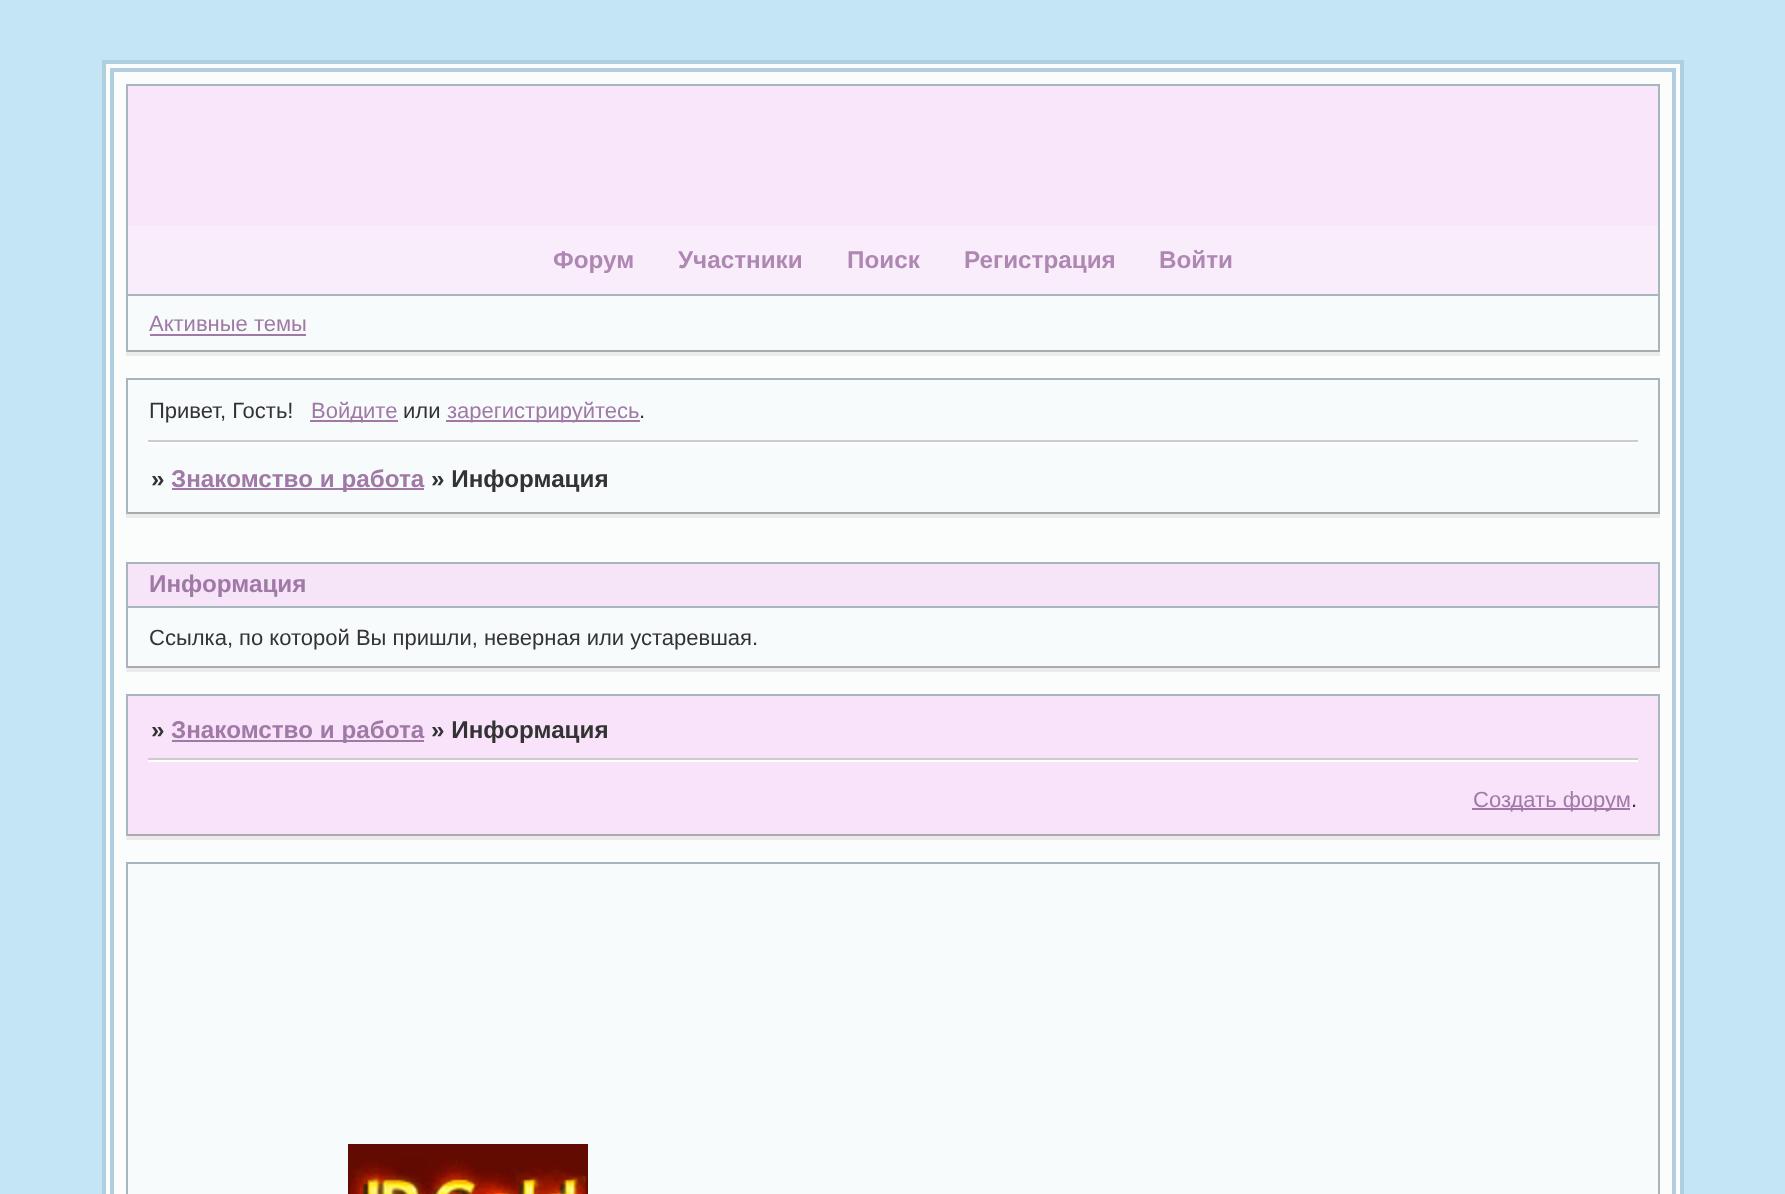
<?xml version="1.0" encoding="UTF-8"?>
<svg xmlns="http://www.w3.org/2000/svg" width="1785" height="1194">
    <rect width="100%" height="100%" fill="#C4E5F3"/>
    <rect x="104" y="62" width="1578" height="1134" fill="#FBFDFD" stroke="#AFCFDE" stroke-width="4"/>
    <rect x="112" y="70" width="1562" height="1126" fill="none" stroke="#AFCFDE" stroke-width="4"/>
    <rect x="126" y="84" width="1534" height="2" fill="#A7B5BD"/>
    <rect x="1658" y="84" width="2" height="210" fill="#A7B5BD"/>
    <rect x="126" y="84" width="2" height="210" fill="#A7B5BD"/>
    <rect x="128" y="86" width="1530" height="140" fill="#F9E6FB"/>
    <rect x="128" y="226" width="1530" height="68" fill="#F9EDFB"/>
    <text x="553" y="268" font-family="Liberation Sans" font-size="24.25" font-weight="700" fill="#AE87B3">Форум</text>
    <text x="678" y="268" font-family="Liberation Sans" font-size="24.25" font-weight="700" fill="#AE87B3">Участники</text>
    <text x="847" y="268" font-family="Liberation Sans" font-size="24.25" font-weight="700" fill="#AE87B3">Поиск</text>
    <text x="964" y="268" font-family="Liberation Sans" font-size="24.25" font-weight="700" fill="#AE87B3">Регистрация</text>
    <text x="1159" y="268" font-family="Liberation Sans" font-size="24.25" font-weight="700" fill="#AE87B3">Войти</text>
    <rect x="126" y="352" width="1534" height="4" fill="#EBEBEB"/>
    <rect x="128" y="296" width="1530" height="54" fill="#F7FBFB"/>
    <rect x="126" y="294" width="1534" height="2" fill="#A7B5BD"/>
    <rect x="1658" y="294" width="2" height="58" fill="#A7B5BD"/>
    <rect x="126" y="350" width="1534" height="2" fill="#AAAAAA"/>
    <rect x="126" y="294" width="2" height="58" fill="#A7B5BD"/>
    <text x="149" y="331" font-family="Liberation Sans" font-size="22" fill="#A079A6">Активные темы</text>
    <rect x="150" y="334" width="156" height="2" fill="#A079A6"/>
    <rect x="128" y="380" width="1530" height="132" fill="#F7FBFB"/>
    <rect x="126" y="378" width="1534" height="2" fill="#A7B5BD"/>
    <rect x="1658" y="378" width="2" height="136" fill="#A7B5BD"/>
    <rect x="126" y="378" width="2" height="66" fill="#A7B5BD"/>
    <text x="149" y="418" font-family="Liberation Sans" font-size="22" fill="#333333">Привет, Гость!</text>
    <rect x="310" y="420" width="88" height="2" fill="#A079A6"/>
    <text x="311" y="418" font-family="Liberation Sans" font-size="22" fill="#A079A6">Войдите</text>
    <text x="403" y="418" font-family="Liberation Sans" font-size="22" fill="#333333">или</text>
    <rect x="446" y="420" width="194" height="2" fill="#A079A6"/>
    <text x="447" y="418" font-family="Liberation Sans" font-size="22" fill="#A079A6">зарегистрируйтесь</text>
    <text x="639" y="418" font-family="Liberation Sans" font-size="22" fill="#333333">.</text>
    <rect x="148" y="440" width="1490" height="2" fill="#CCCCCC"/>
    <rect x="148" y="442" width="1490" height="2" fill="#FFFFFF"/>
    <rect x="126" y="514" width="1534" height="4" fill="#EBEBEB"/>
    <rect x="126" y="512" width="1534" height="2" fill="#AAAAAA"/>
    <rect x="126" y="440" width="2" height="74" fill="#A7B5BD"/>
    <text x="151" y="487" font-family="Liberation Sans" font-size="24.25" font-weight="700" fill="#333333">»</text>
    <rect x="172" y="488" width="252" height="2" fill="#A079A6"/>
    <text x="171" y="487" font-family="Liberation Sans" font-size="24.25" font-weight="700" fill="#A079A6">Знакомство и работа</text>
    <text x="431" y="487" font-family="Liberation Sans" font-size="24.25" font-weight="700" fill="#333333">» Информация</text>
    <rect x="128" y="564" width="1530" height="42" fill="#F6E4F9"/>
    <rect x="126" y="562" width="1534" height="2" fill="#A7B5BD"/>
    <rect x="1658" y="562" width="2" height="44" fill="#A7B5BD"/>
    <rect x="126" y="562" width="2" height="44" fill="#A7B5BD"/>
    <text x="149" y="592" font-family="Liberation Sans" font-size="24.25" font-weight="700" fill="#A079A6">Информация</text>
    <rect x="126" y="668" width="1534" height="4" fill="#EBEBEB"/>
    <rect x="128" y="608" width="1530" height="58" fill="#F7FBFB"/>
    <rect x="126" y="606" width="1534" height="2" fill="#A7B5BD"/>
    <rect x="1658" y="606" width="2" height="62" fill="#A7B5BD"/>
    <rect x="126" y="666" width="1534" height="2" fill="#AAAAAA"/>
    <rect x="126" y="606" width="2" height="62" fill="#A7B5BD"/>
    <text x="149" y="645" font-family="Liberation Sans" font-size="22" fill="#333333">Ссылка, по которой Вы пришли, неверная или устаревшая.</text>
    <rect x="126" y="694" width="1534" height="2" fill="#A7B5BD"/>
    <rect x="1658" y="758" width="2" height="78" fill="#A7B5BD"/>
    <rect x="1658" y="694" width="2" height="68" fill="#A7B5BD"/>
    <rect x="126" y="834" width="1534" height="2" fill="#AAAAAA"/>
    <rect x="126" y="758" width="2" height="78" fill="#A7B5BD"/>
    <rect x="126" y="694" width="2" height="68" fill="#A7B5BD"/>
    <rect x="128" y="696" width="1530" height="138" fill="#F8E3FB"/>
    <text x="151" y="738" font-family="Liberation Sans" font-size="24.25" font-weight="700" fill="#333333">»</text>
    <rect x="172" y="740" width="252" height="2" fill="#A079A6"/>
    <text x="171" y="738" font-family="Liberation Sans" font-size="24.25" font-weight="700" fill="#A079A6">Знакомство и работа</text>
    <text x="431" y="738" font-family="Liberation Sans" font-size="24.25" font-weight="700" fill="#333333">» Информация</text>
    <rect x="148" y="758" width="1490" height="2" fill="#CCCCCC"/>
    <rect x="148" y="760" width="1490" height="2" fill="#FFFFFF"/>
    <rect x="126" y="836" width="1534" height="4" fill="#EBEBEB"/>
    <rect x="1472" y="808" width="158" height="2" fill="#A079A6"/>
    <text x="1473" y="807" font-family="Liberation Sans" font-size="22" fill="#A079A6">Создать форум</text>
    <text x="1631" y="807" font-family="Liberation Sans" font-size="22" fill="#333333">.</text>
    <rect x="128" y="864" width="1530" height="330" fill="#F7FBFB"/>
    <rect x="126" y="862" width="1534" height="2" fill="#A7B5BD"/>
    <rect x="1658" y="862" width="2" height="332" fill="#A7B5BD"/>
    <rect x="126" y="862" width="2" height="332" fill="#A7B5BD"/>
    <image x="348" y="1144" width="240" height="50" href="img_01.png"/>
</svg>
